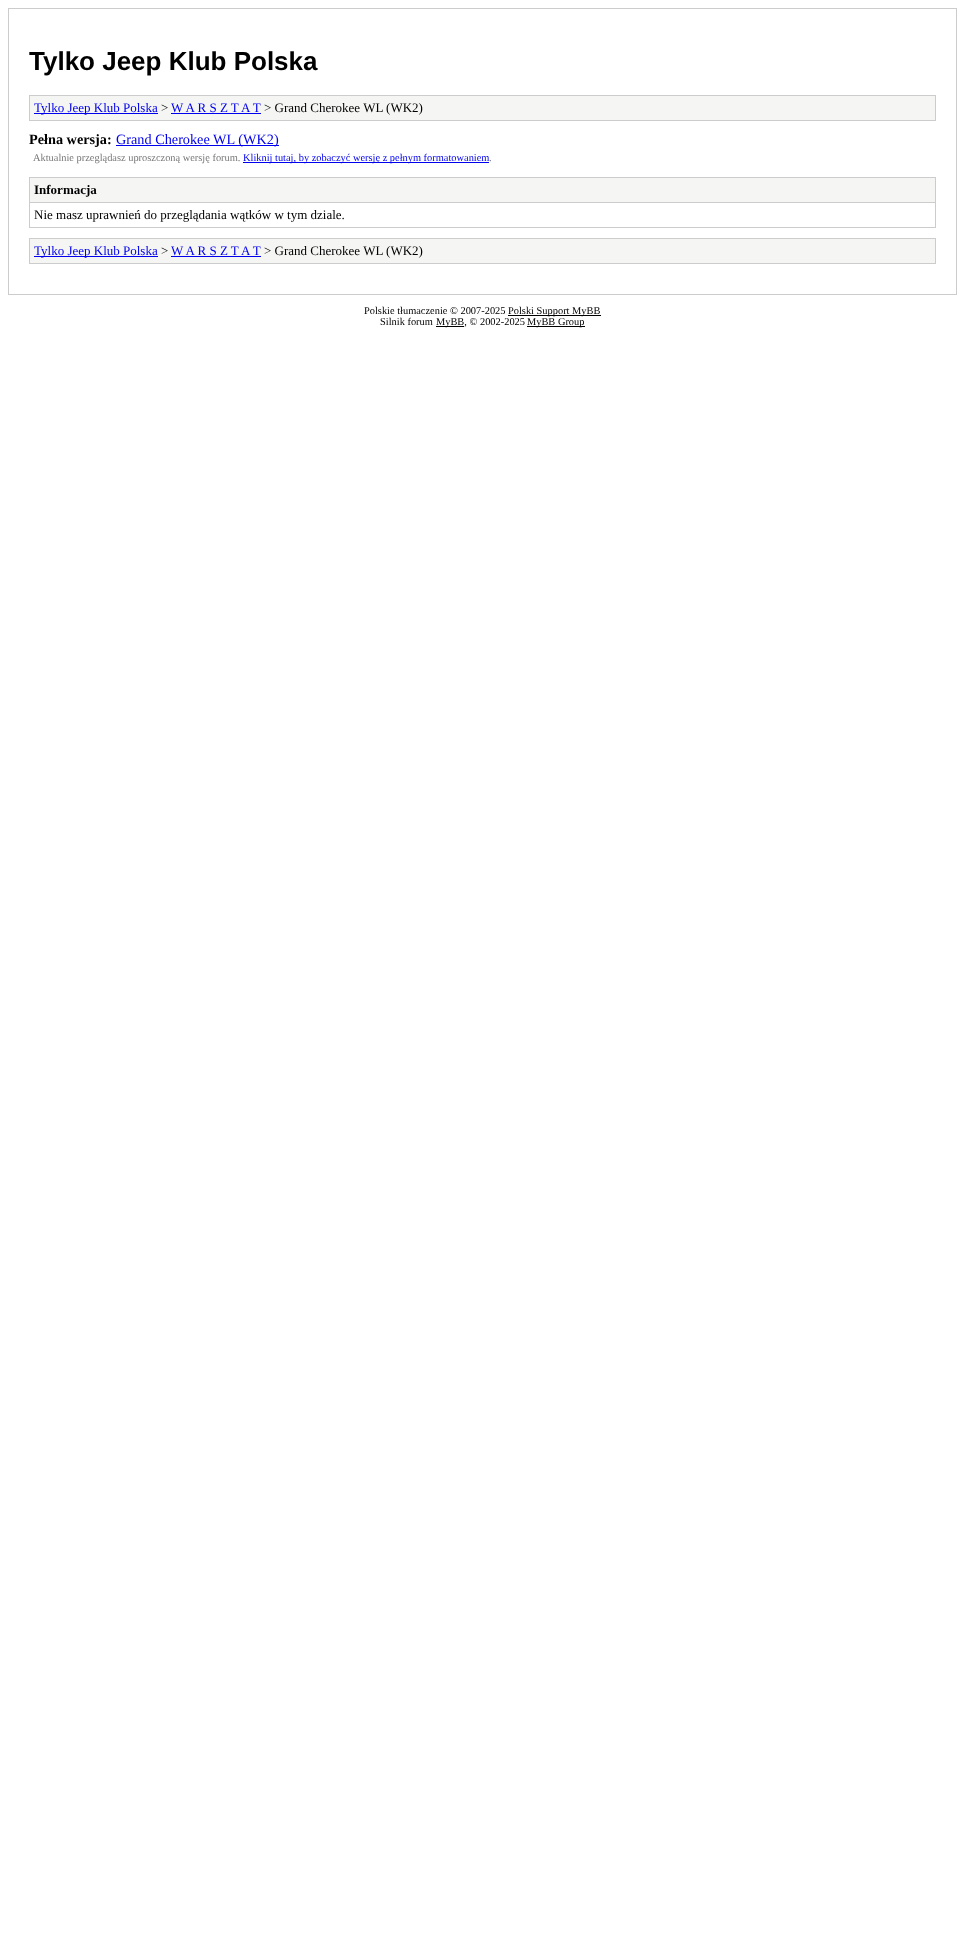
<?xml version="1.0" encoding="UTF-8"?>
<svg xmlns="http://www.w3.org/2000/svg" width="965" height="1939">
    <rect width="100%" height="100%" fill="#FFFFFF"/>
    <rect x="8.5" y="8.5" width="948" height="286" fill="none" stroke="#CCCCCC"/>
    <text x="29" y="70" font-family="Liberation Sans" font-size="26" font-weight="700" fill="#000000">Tylko Jeep Klub Polska</text>
    <rect x="29.5" y="95.5" width="906" height="25" fill="#F5F5F4" stroke="#CCCCCC"/>
    <rect x="34" y="113" width="124" height="1" fill="#0000EE"/>
    <text x="34" y="112" font-family="Liberation Serif" font-size="13" fill="#0000EE">Tylko Jeep Klub Polska</text>
    <text x="161" y="112" font-family="Liberation Serif" font-size="13" fill="#000000">&gt;</text>
    <text x="171" y="112" font-family="Liberation Serif" font-size="13" fill="#0000EE">W A R S Z T A T</text>
    <rect x="171" y="113" width="90" height="1" fill="#0000EE"/>
    <text x="264" y="112" font-family="Liberation Serif" font-size="13" fill="#000000">&gt; Grand Cherokee WL (WK2)</text>
    <text x="29" y="144" font-family="Liberation Serif" font-size="14.25" font-weight="700" fill="#000000">Pełna wersja:</text>
    <rect x="116" y="145" width="163" height="1" fill="#0000EE"/>
    <text x="116" y="144" font-family="Liberation Serif" font-size="14.25" fill="#0000EE">Grand Cherokee WL (WK2)</text>
    <text x="33" y="161" font-family="Liberation Serif" font-size="10.4" fill="#777777">Aktualnie przeglądasz uproszczoną wersję forum.</text>
    <rect x="243" y="162" width="246" height="1" fill="#0000EE"/>
    <text x="243" y="161" font-family="Liberation Serif" font-size="10.4" fill="#0000EE">Kliknij tutaj, by zobaczyć wersję z pełnym formatowaniem</text>
    <text x="489" y="161" font-family="Liberation Serif" font-size="10.4" fill="#777777">.</text>
    <rect x="29.5" y="177.5" width="906" height="50" fill="none" stroke="#CCCCCC"/>
    <rect x="30" y="178" width="905" height="24" fill="#F5F5F4"/>
    <rect x="30" y="202" width="905" height="1" fill="#CCCCCC"/>
    <text x="34" y="194" font-family="Liberation Serif" font-size="13" font-weight="700" fill="#000000">Informacja</text>
    <text x="34" y="219" font-family="Liberation Serif" font-size="13" fill="#000000">Nie masz uprawnień do przeglądania wątków w tym dziale.</text>
    <rect x="29.5" y="238.5" width="906" height="25" fill="#F5F5F4" stroke="#CCCCCC"/>
    <rect x="34" y="256" width="124" height="1" fill="#0000EE"/>
    <text x="34" y="255" font-family="Liberation Serif" font-size="13" fill="#0000EE">Tylko Jeep Klub Polska</text>
    <text x="161" y="255" font-family="Liberation Serif" font-size="13" fill="#000000">&gt;</text>
    <text x="171" y="255" font-family="Liberation Serif" font-size="13" fill="#0000EE">W A R S Z T A T</text>
    <rect x="171" y="256" width="90" height="1" fill="#0000EE"/>
    <text x="264" y="255" font-family="Liberation Serif" font-size="13" fill="#000000">&gt; Grand Cherokee WL (WK2)</text>
    <text x="364" y="314" font-family="Liberation Serif" font-size="10.4" fill="#000000">Polskie tłumaczenie © 2007-2025</text>
    <rect x="508" y="315" width="93" height="1" fill="#000000"/>
    <text x="508" y="314" font-family="Liberation Serif" font-size="10.4" fill="#000000">Polski Support MyBB</text>
    <text x="380" y="325" font-family="Liberation Serif" font-size="10.4" fill="#000000">Silnik forum</text>
    <rect x="436" y="326" width="28" height="1" fill="#000000"/>
    <text x="436" y="325" font-family="Liberation Serif" font-size="10.4" fill="#000000">MyBB, © 2002-2025</text>
    <rect x="527" y="326" width="58" height="1" fill="#000000"/>
    <text x="527" y="325" font-family="Liberation Serif" font-size="10.4" fill="#000000">MyBB Group</text>
</svg>
